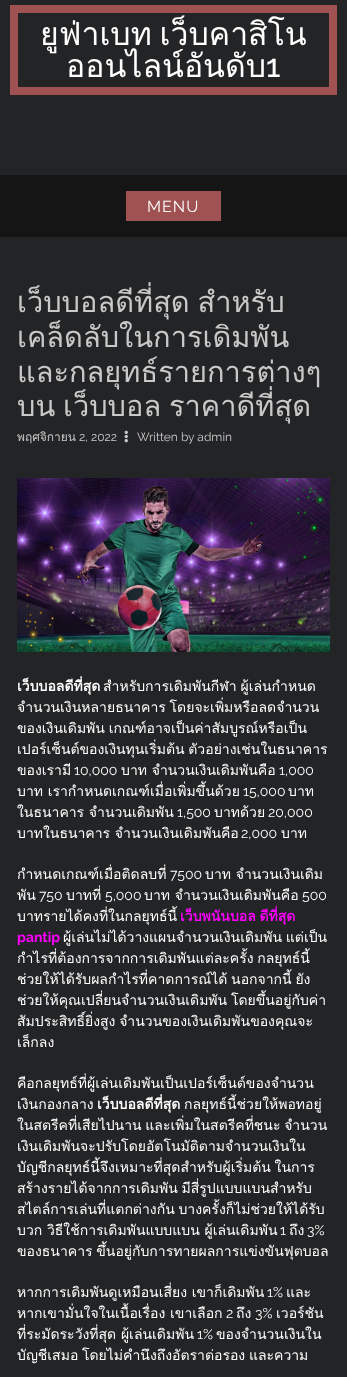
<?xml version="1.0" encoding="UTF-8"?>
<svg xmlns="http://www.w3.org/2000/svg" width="347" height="1377">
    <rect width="100%" height="100%" fill="#232426"/>
    <rect x="0" y="175" width="347" height="62" fill="#151515"/>
    <rect x="14" y="9" width="319" height="82" fill="none" stroke="#A05252" stroke-width="8"/>
    <text x="40" y="45" word-spacing="-3" font-family="Loma" font-size="32" fill="#FFFFFF">ยูฟ่าเบท เว็บคาสิโน</text>
    <text x="66" y="77" font-family="Loma" font-size="32" fill="#FFFFFF">ออนไลน์อันดับ</text>
    <text x="266" y="77" font-family="Raleway" font-size="32" font-weight="500" fill="#FFFFFF">1</text>
    <rect x="126" y="191" width="95" height="30" fill="#A05252"/>
    <text x="147" y="212" font-family="Raleway" font-size="16" letter-spacing="1" fill="#FFFFFF">MENU</text>
    <text font-family="Loma" font-size="29" fill="#C9C9C9">
        <tspan x="17" y="312" word-spacing="-2">เว็บบอลดีที่สุด สำหรับ</tspan>
        <tspan x="17" y="347">เคล็ดลับในการเดิมพัน</tspan>
        <tspan x="17" y="382">และกลยุทธ์รายการต่างๆ</tspan>
        <tspan x="17" y="416" word-spacing="-2">บน เว็บบอล ราคาดีที่สุด</tspan>
    </text>
    <text x="17" y="441" font-family="Loma" font-size="12" fill="#C9C9C9">พฤศจิกายน</text>
    <text x="79" y="441" font-family="Raleway" font-size="12" fill="#C9C9C9">2, 2022</text>
    <image x="124" y="430" width="4" height="13" href="img_01.png"/>
    <text x="137" y="441" font-family="Raleway" font-size="12" fill="#C9C9C9">Written by admin</text>
    <image x="17" y="478" width="313" height="174" href="img_02.png"/>
    <text x="17" y="691" font-family="Loma" font-size="14" font-weight="700" fill="#FFFFFF">เว็บบอลดีที่สุด</text>
    <text x="103" y="691" word-spacing="-1" font-family="Loma" font-size="14" fill="#FFFFFF">สำหรับการเดิมพันกีฬา ผู้เล่นกำหนด</text>
    <text font-family="Loma" font-size="14" fill="#FFFFFF">
        <tspan x="17" y="712" word-spacing="-1">จำนวนเงินหลายธนาคาร โดยจะเพิ่มหรือลดจำนวน</tspan>
        <tspan x="17" y="733" word-spacing="-1">ของเงินเดิมพัน เกณฑ์อาจเป็นค่าสัมบูรณ์หรือเป็น</tspan>
        <tspan x="17" y="754" word-spacing="-1">เปอร์เซ็นต์ของเงินทุนเริ่มต้น ตัวอย่างเช่นในธนาคาร</tspan>
        <tspan x="17" y="775">ของเรามี</tspan>
    </text>
    <text x="74" y="775" font-family="Raleway" font-size="14" fill="#FFFFFF">10,000</text>
    <text x="121" y="775" font-family="Loma" font-size="14" fill="#FFFFFF">บาท จำนวนเงินเดิมพันคือ</text>
    <text x="279" y="775" font-family="Raleway" font-size="14" fill="#FFFFFF">1,000</text>
    <text x="17" y="796" font-family="Loma" font-size="14" fill="#FFFFFF">บาท เรากำหนดเกณฑ์เมื่อเพิ่มขึ้นด้วย</text>
    <text x="243" y="796" font-family="Raleway" font-size="14" fill="#FFFFFF">15,000</text>
    <text x="288" y="796" font-family="Loma" font-size="14" fill="#FFFFFF">บาท</text>
    <text x="17" y="817" font-family="Loma" font-size="14" fill="#FFFFFF">ในธนาคาร จำนวนเดิมพัน</text>
    <text x="177" y="817" font-family="Raleway" font-size="14" fill="#FFFFFF">1,500</text>
    <text x="214" y="817" font-family="Loma" font-size="14" fill="#FFFFFF">บาทด้วย</text>
    <text x="268" y="817" font-family="Raleway" font-size="14" fill="#FFFFFF">20,000</text>
    <text x="17" y="838" font-family="Loma" font-size="14" fill="#FFFFFF">บาทในธนาคาร จำนวนเงินเดิมพันคือ</text>
    <text x="241" y="838" font-family="Raleway" font-size="14" fill="#FFFFFF">2,000</text>
    <text x="281" y="838" font-family="Loma" font-size="14" fill="#FFFFFF">บาท</text>
    <text x="17" y="879" font-family="Loma" font-size="14" fill="#FFFFFF">กำหนดเกณฑ์เมื่อติดลบที่</text>
    <text x="170" y="879" font-family="Raleway" font-size="14" fill="#FFFFFF">7500</text>
    <text x="205" y="879" font-family="Loma" font-size="14" fill="#FFFFFF">บาท จำนวนเงินเดิม</text>
    <text x="17" y="900" font-family="Loma" font-size="14" fill="#FFFFFF">พัน</text>
    <text x="39" y="900" font-family="Raleway" font-size="14" fill="#FFFFFF">750</text>
    <text x="66" y="900" font-family="Loma" font-size="14" fill="#FFFFFF">บาทที่</text>
    <text x="105" y="900" font-family="Raleway" font-size="14" fill="#FFFFFF">5,000</text>
    <text x="144" y="900" font-family="Loma" font-size="14" fill="#FFFFFF">บาท จำนวนเงินเดิมพันคือ</text>
    <text x="302" y="900" font-family="Raleway" font-size="14" fill="#FFFFFF">500</text>
    <text x="17" y="921" font-family="Loma" font-size="14" fill="#FFFFFF">บาทรายได้คงที่ในกลยุทธ์นี้</text>
    <text x="180" y="921" word-spacing="-1" font-family="Loma" font-size="14" font-weight="700" fill="#FF00FF">เว็บพนันบอล ดีที่สุด</text>
    <text x="17" y="942" font-family="Raleway" font-size="14" font-weight="700" fill="#FF00FF">pantip</text>
    <text x="63" y="942" word-spacing="-1" font-family="Loma" font-size="14" fill="#FFFFFF">ผู้เล่นไม่ได้วางแผนจำนวนเงินเดิมพัน แต่เป็น</text>
    <text font-family="Loma" font-size="14" fill="#FFFFFF">
        <tspan x="17" y="963" word-spacing="-1">กำไรที่ต้องการจากการเดิมพันแต่ละครั้ง กลยุทธ์นี้</tspan>
        <tspan x="17" y="984" word-spacing="-1">ช่วยให้ได้รับผลกำไรที่คาดการณ์ได้ นอกจากนี้ ยัง</tspan>
        <tspan x="17" y="1005" word-spacing="-1">ช่วยให้คุณเปลี่ยนจำนวนเงินเดิมพัน โดยขึ้นอยู่กับค่า</tspan>
        <tspan x="17" y="1026" word-spacing="-1">สัมประสิทธิ์ยิ่งสูง จำนวนของเงินเดิมพันของคุณจะ</tspan>
        <tspan x="17" y="1047">เล็กลง</tspan>
    </text>
    <text font-family="Loma" font-size="14" fill="#FFFFFF">
        <tspan x="17" y="1088">คือกลยุทธ์ที่ผู้เล่นเดิมพันเป็นเปอร์เซ็นต์ของจำนวน</tspan>
        <tspan x="17" y="1109">เงินกองกลาง</tspan>
    </text>
    <text x="97" y="1109" font-family="Loma" font-size="14" font-weight="700" fill="#FFFFFF">เว็บบอลดีที่สุด</text>
    <text x="184" y="1109" font-family="Loma" font-size="14" fill="#FFFFFF">กลยุทธ์นี้ช่วยให้พอทอยู่</text>
    <text font-family="Loma" font-size="14" fill="#FFFFFF">
        <tspan x="17" y="1130" word-spacing="-1">ในสตรีคที่เสียไปนาน และเพิ่มในสตรีคที่ชนะ จำนวน</tspan>
        <tspan x="17" y="1151">เงินเดิมพันจะปรับโดยอัตโนมัติตามจำนวนเงินใน</tspan>
        <tspan x="17" y="1172" word-spacing="-1">บัญชีกลยุทธ์นี้จึงเหมาะที่สุดสำหรับผู้เริ่มต้น ในการ</tspan>
        <tspan x="17" y="1193" word-spacing="-1">สร้างรายได้จากการเดิมพัน มีสี่รูปแบบแบนสำหรับ</tspan>
        <tspan x="17" y="1214" word-spacing="-1">สไตล์การเล่นที่แตกต่างกัน บางครั้งก็ไม่ช่วยให้ได้รับ</tspan>
        <tspan x="17" y="1235">บวก วิธีใช้การเดิมพันแบบแบน ผู้เล่นเดิมพัน</tspan>
    </text>
    <text x="280" y="1235" font-family="Raleway" font-size="14" fill="#FFFFFF">1</text>
    <text x="289" y="1235" font-family="Loma" font-size="14" fill="#FFFFFF">ถึง</text>
    <text x="307" y="1235" font-family="Raleway" font-size="14" fill="#FFFFFF">3%</text>
    <text x="17" y="1256" word-spacing="-1" font-family="Loma" font-size="14" fill="#FFFFFF">ของธนาคาร ขึ้นอยู่กับการทายผลการแข่งขันฟุตบอล</text>
    <text x="17" y="1297" font-family="Loma" font-size="14" fill="#FFFFFF">หากการเดิมพันดูเหมือนเสี่ยง เขาก็เดิมพัน</text>
    <text x="267" y="1297" font-family="Raleway" font-size="14" fill="#FFFFFF">1%</text>
    <text x="286" y="1297" font-family="Loma" font-size="14" fill="#FFFFFF">และ</text>
    <text x="17" y="1318" font-family="Loma" font-size="14" fill="#FFFFFF">หากเขามั่นใจในเนื้อเรื่อง เขาเลือก</text>
    <text x="226" y="1318" font-family="Raleway" font-size="14" fill="#FFFFFF">2</text>
    <text x="236" y="1318" font-family="Loma" font-size="14" fill="#FFFFFF">ถึง</text>
    <text x="255" y="1318" font-family="Raleway" font-size="14" fill="#FFFFFF">3%</text>
    <text x="276" y="1318" font-family="Loma" font-size="14" fill="#FFFFFF">เวอร์ชัน</text>
    <text x="17" y="1339" font-family="Loma" font-size="14" fill="#FFFFFF">ที่ระมัดระวังที่สุด ผู้เล่นเดิมพัน</text>
    <text x="197" y="1339" font-family="Raleway" font-size="14" fill="#FFFFFF">1%</text>
    <text x="216" y="1339" font-family="Loma" font-size="14" fill="#FFFFFF">ของจำนวนเงินใน</text>
    <text x="17" y="1360" word-spacing="-1" font-family="Loma" font-size="14" fill="#FFFFFF">บัญชีเสมอ โดยไม่คำนึงถึงอัตราต่อรอง และความ</text>
</svg>
